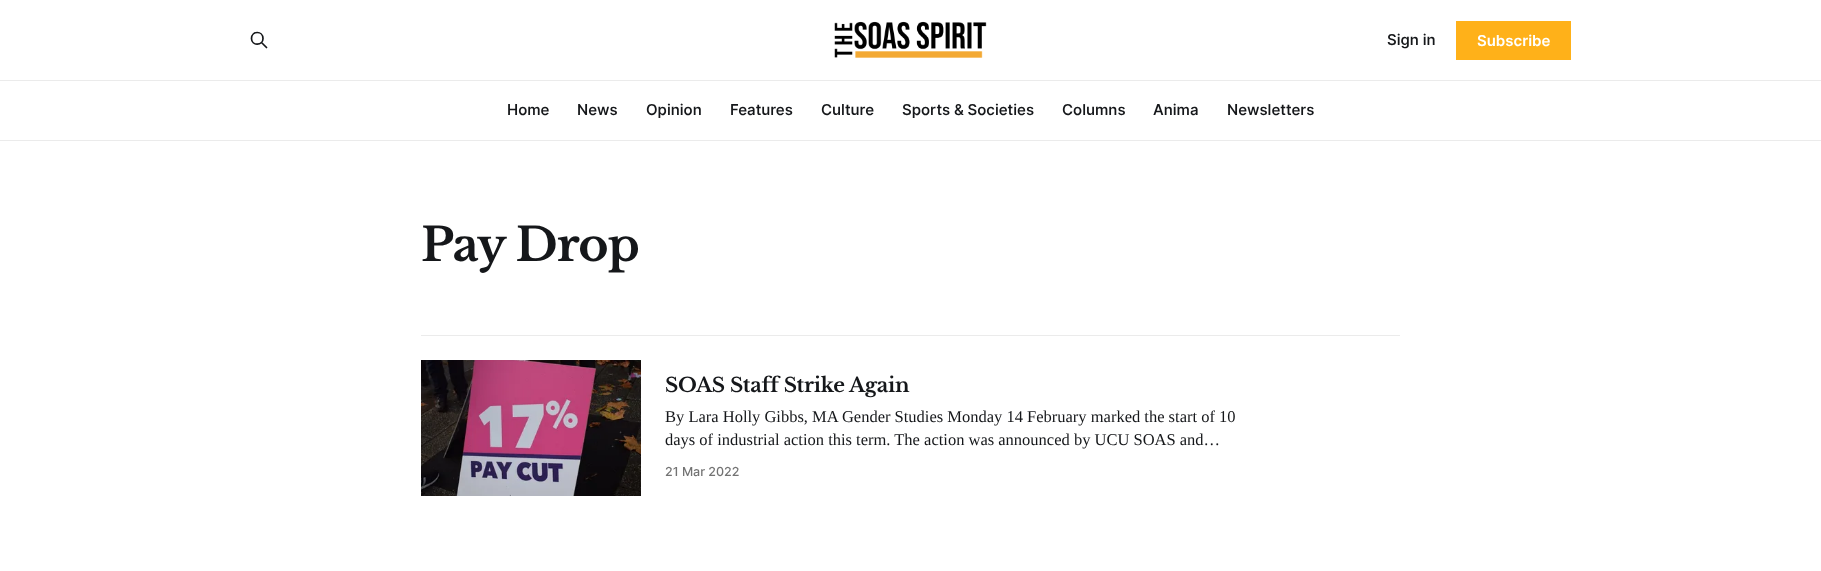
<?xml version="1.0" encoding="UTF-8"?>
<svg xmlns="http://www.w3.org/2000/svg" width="1821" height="571">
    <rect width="100%" height="100%" fill="#FFFFFF"/>
    <image x="834" y="21" width="153" height="37" href="img_01.png"/>
    <path d="M 266.5 47.5 L 261.5 42.5 M 263 38.5 C 263 46 251.5 46 251.5 38.5 C 251.5 30.5 263 30.5 263 38.5 Z" fill="none" stroke="#15171A" stroke-width="1.7" stroke-linecap="round" stroke-linejoin="round"/>
    <text x="1387" y="45" font-family="Inter" font-size="15" font-weight="500" fill="#15171A">Sign in</text>
    <rect x="1456" y="21" width="115" height="39" fill="#FFB119"/>
    <text x="1477" y="46" font-family="Inter" font-size="15" font-weight="600" fill="#FFFFFF">Subscribe</text>
    <rect x="0" y="80" width="1821" height="1" fill="#EBEBEB"/>
    <text x="507" y="115" font-family="Inter" font-size="15" font-weight="500" fill="#15171A">Home</text>
    <text x="577" y="115" font-family="Inter" font-size="15" font-weight="500" fill="#15171A">News</text>
    <text x="646" y="115" font-family="Inter" font-size="15" font-weight="500" fill="#15171A">Opinion</text>
    <text x="730" y="115" font-family="Inter" font-size="15" font-weight="500" fill="#15171A">Features</text>
    <text x="821" y="115" font-family="Inter" font-size="15" font-weight="500" fill="#15171A">Culture</text>
    <text x="902" y="115" font-family="Inter" font-size="15" font-weight="500" fill="#15171A">Sports &amp; Societies</text>
    <text x="1062" y="115" font-family="Inter" font-size="15" font-weight="500" fill="#15171A">Columns</text>
    <text x="1153" y="115" font-family="Inter" font-size="15" font-weight="500" fill="#15171A">Anima</text>
    <text x="1227" y="115" font-family="Inter" font-size="15" font-weight="500" fill="#15171A">Newsletters</text>
    <rect x="0" y="140" width="1821" height="1" fill="#EBEBEB"/>
    <rect x="421" y="335" width="979" height="1" fill="#EBEBEB"/>
    <text x="421" y="261" font-family="Libre Baskerville" font-size="46" font-weight="700" letter-spacing="-1" fill="#15171A">Pay Drop</text>
    <image x="421" y="360" width="220" height="136" href="img_02.png"/>
    <text x="665" y="392" font-family="Libre Baskerville" font-size="20" font-weight="700" letter-spacing="-0.25" fill="#15171A">SOAS Staff Strike Again</text>
    <text font-family="Liberation Serif" font-size="16.5" fill="#15171A">
        <tspan x="665" y="422">By Lara Holly Gibbs, MA Gender Studies Monday 14 February marked the start of 10</tspan>
        <tspan x="665" y="445">days of industrial action this term. The action was announced by UCU SOAS and…</tspan>
    </text>
    <text x="665" y="476" font-family="'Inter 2'" font-size="12.5" font-weight="500" fill="#737373">21 Mar 2022</text>
</svg>
